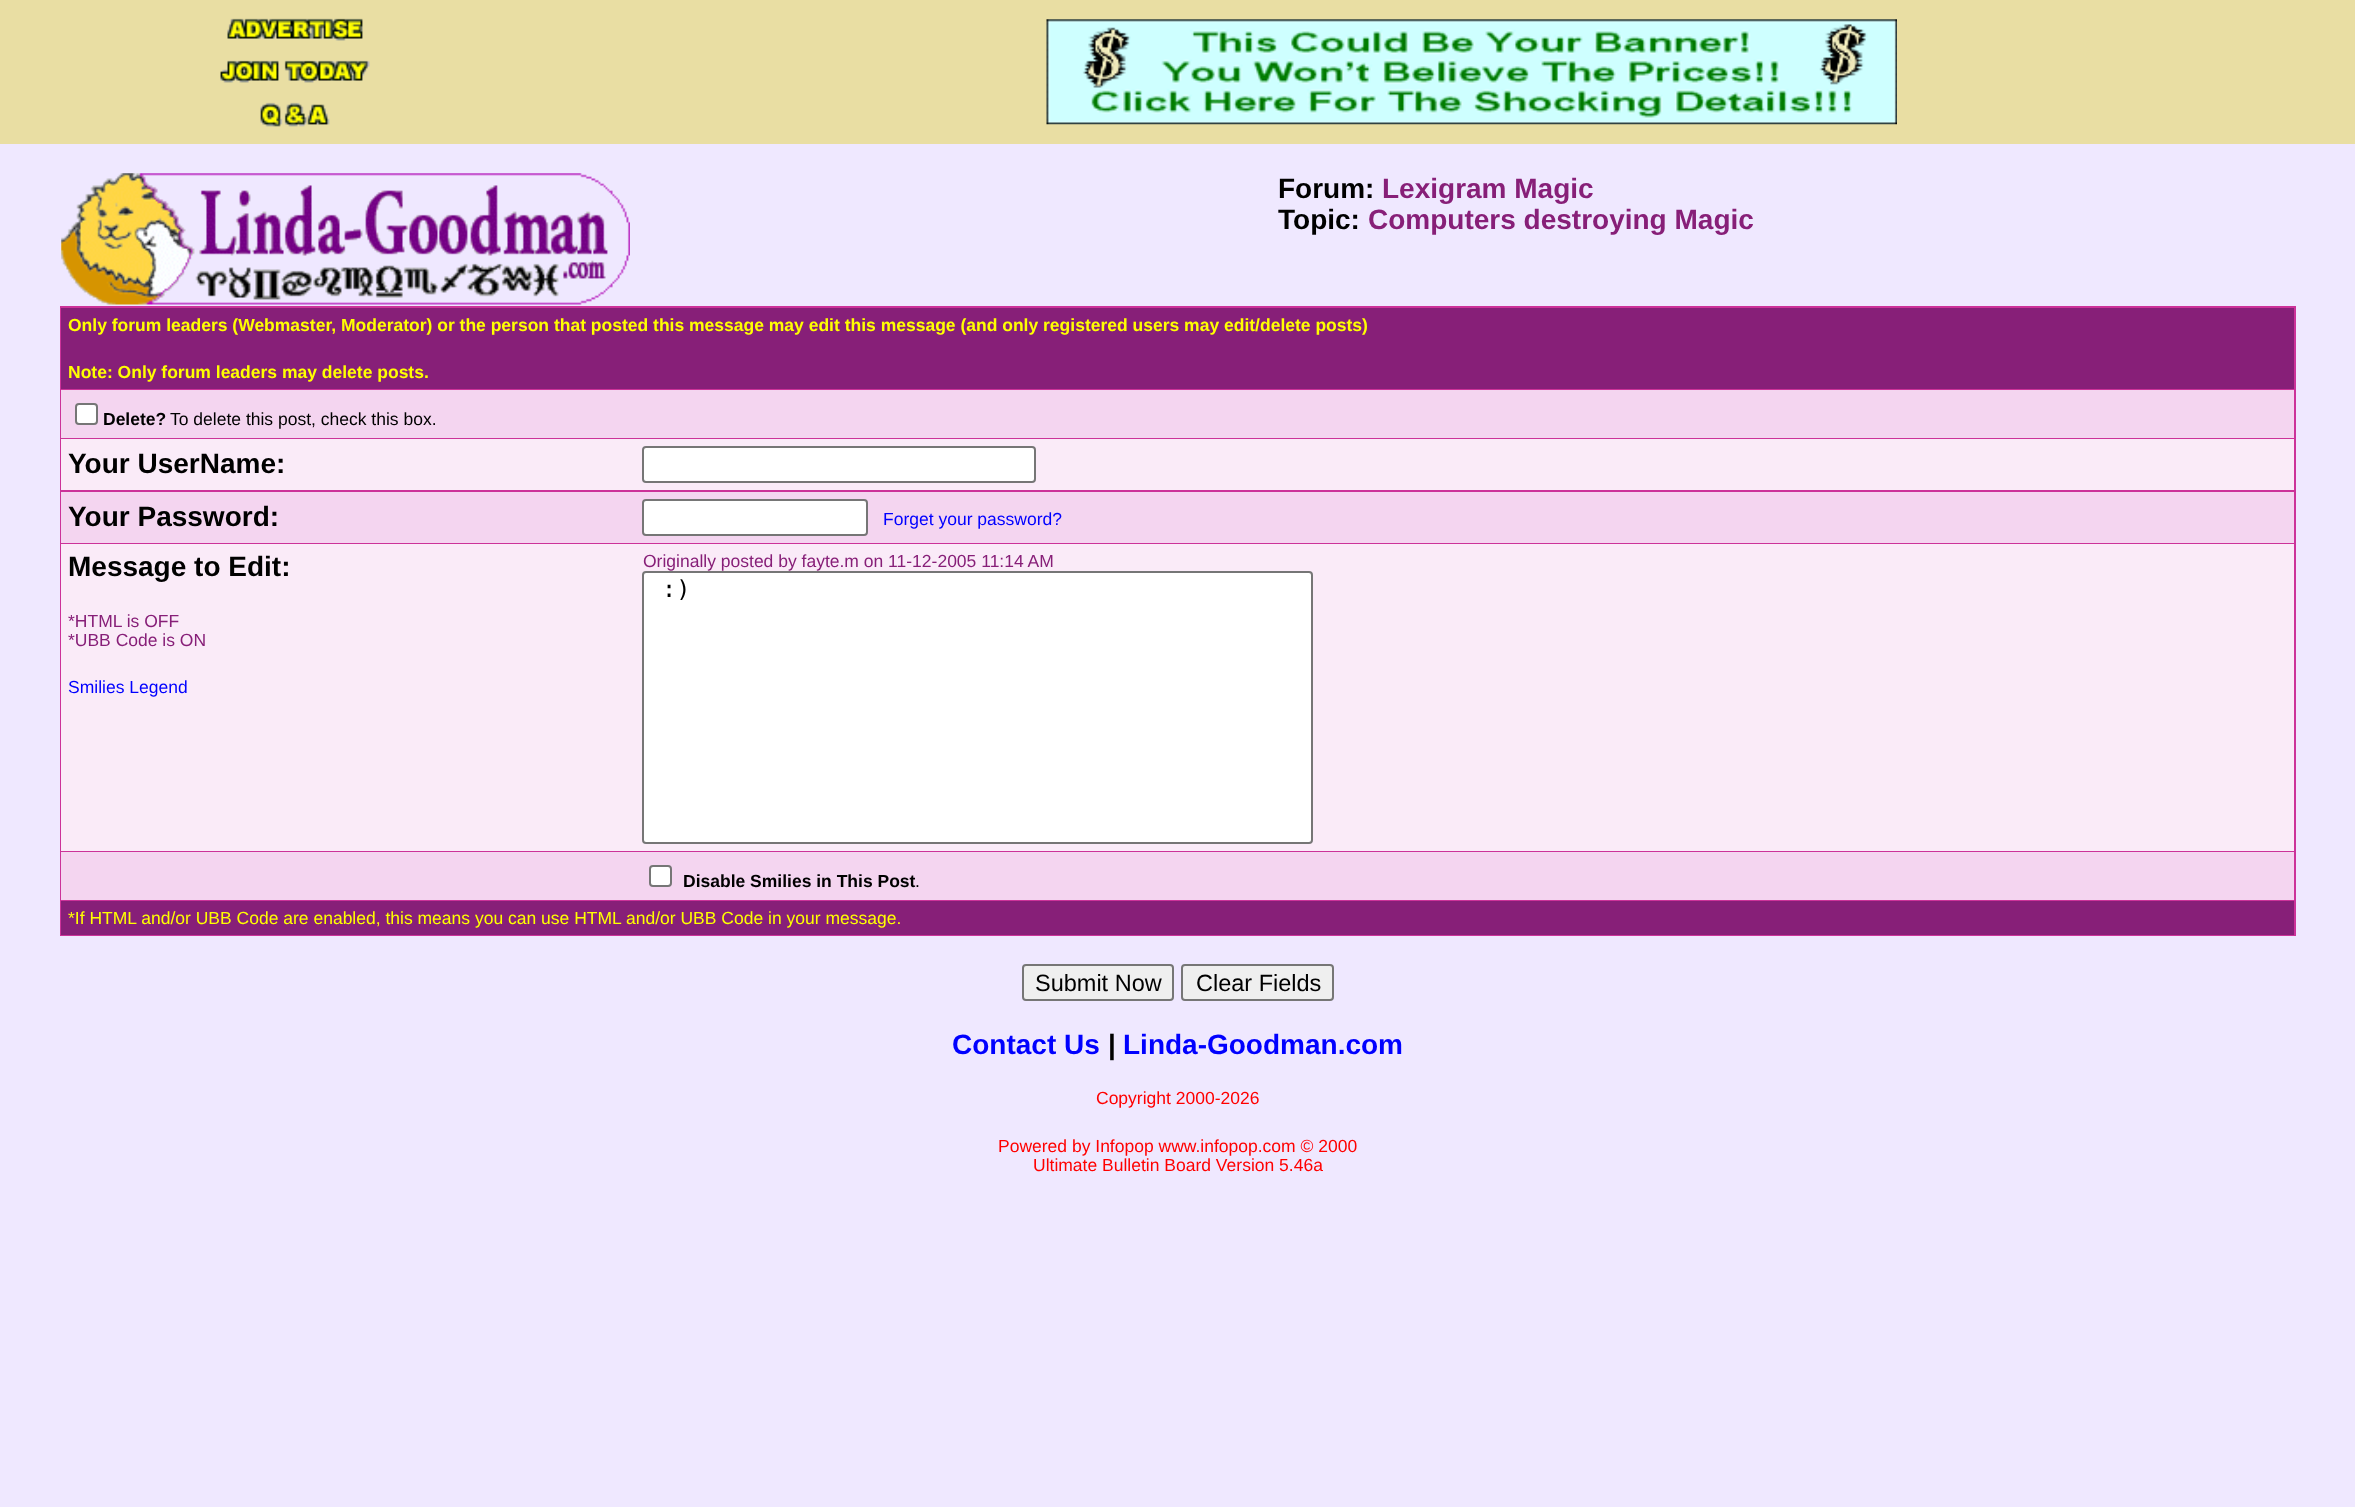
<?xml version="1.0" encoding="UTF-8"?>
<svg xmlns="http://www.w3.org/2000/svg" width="2355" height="1507">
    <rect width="100%" height="100%" fill="#EFE8FF"/>
    <rect x="0" y="0" width="2355" height="144" fill="#E9DEA3"/>
    <image x="227" y="18" width="136" height="23" href="img_01.png"/>
    <image x="220" y="60" width="150" height="23" href="img_02.png"/>
    <image x="260" y="102" width="70" height="25" href="img_03.png"/>
    <image x="1046" y="19" width="851" height="106" href="img_04.png"/>
    <image x="61" y="173" width="569" height="132" href="img_05.png"/>
    <text x="1278" y="198" font-family="Liberation Sans" font-size="28" font-weight="700" fill="#000000">Forum:</text>
    <text x="1382" y="198" font-family="Liberation Sans" font-size="28" font-weight="700" fill="#871F78">Lexigram Magic</text>
    <text x="1278" y="229" font-family="Liberation Sans" font-size="28" font-weight="700" fill="#000000">Topic:</text>
    <text x="1368" y="229" font-family="Liberation Sans" font-size="28" font-weight="700" fill="#871F78">Computers destroying Magic</text>
    <rect x="60" y="306" width="2236" height="630" fill="#CC3299"/>
    <rect x="61" y="308" width="2233" height="81" fill="#871F78"/>
    <text x="68" y="331" font-family="Liberation Sans" font-size="17.5" font-weight="700" fill="#FFFF00">Only forum leaders (Webmaster, Moderator) or the person that posted this message may edit this message (and only registered users may edit/delete posts)</text>
    <text x="68" y="378" font-family="Liberation Sans" font-size="17.5" font-weight="700" fill="#FFFF00">Note: Only forum leaders may delete posts.</text>
    <rect x="61" y="390" width="2233" height="48" fill="#F4D5F0"/>
    <rect x="76" y="404" width="21" height="20" rx="3" fill="#FFFFFF" stroke="#767676" stroke-width="2"/>
    <text x="103" y="425" font-family="Liberation Sans" font-size="17.5" font-weight="700" fill="#000000">Delete?</text>
    <text x="170" y="425" font-family="Liberation Sans" font-size="17.5" fill="#000000">To delete this post, check this box.</text>
    <rect x="61" y="439" width="2233" height="51" fill="#FAEBF8"/>
    <text x="68" y="473" font-family="Liberation Sans" font-size="28" font-weight="700" fill="#000000">Your UserName:</text>
    <rect x="643" y="447" width="392" height="35" rx="3" fill="#FFFFFF" stroke="#767676" stroke-width="2"/>
    <rect x="61" y="492" width="2233" height="51" fill="#F4D5F0"/>
    <text x="68" y="526" font-family="Liberation Sans" font-size="28" font-weight="700" fill="#000000">Your Password:</text>
    <rect x="643" y="500" width="224" height="35" rx="3" fill="#FFFFFF" stroke="#767676" stroke-width="2"/>
    <text x="883" y="525" font-family="Liberation Sans" font-size="17.5" fill="#0000FF">Forget your password?</text>
    <rect x="61" y="544" width="2233" height="307" fill="#FAEBF8"/>
    <text x="68" y="576" font-family="Liberation Sans" font-size="28" font-weight="700" fill="#000000">Message to Edit:</text>
    <text font-family="Liberation Sans" font-size="17.5" fill="#871F78">
        <tspan x="68" y="627">*HTML is OFF</tspan>
        <tspan x="68" y="646">*UBB Code is ON</tspan>
    </text>
    <text x="68" y="693" font-family="Liberation Sans" font-size="17.5" fill="#0000FF">Smilies Legend</text>
    <text x="643" y="567" font-family="Liberation Sans" font-size="17.5" fill="#871F78">Originally posted by fayte.m on 11-12-2005 11:14 AM</text>
    <rect x="643" y="572" width="669" height="271" rx="3" fill="#FFFFFF" stroke="#767676" stroke-width="2"/>
    <text x="662" y="597" font-family="DejaVu Sans Mono" font-size="23.5" fill="#000000">:)</text>
    <rect x="61" y="852" width="2233" height="48" fill="#F4D5F0"/>
    <rect x="650" y="866" width="21" height="20" rx="3" fill="#FFFFFF" stroke="#767676" stroke-width="2"/>
    <text x="683" y="887" font-family="Liberation Sans" font-size="17.5" font-weight="700" fill="#000000">Disable Smilies in This Post</text>
    <text x="915" y="887" font-family="Liberation Sans" font-size="17.5" fill="#000000">.</text>
    <rect x="61" y="901" width="2233" height="34" fill="#871F78"/>
    <text x="68" y="924" font-family="Liberation Sans" font-size="17.5" fill="#FFFF00">*If HTML and/or UBB Code are enabled, this means you can use HTML and/or UBB Code in your message.</text>
    <rect x="1023" y="965" width="150" height="35" rx="3" fill="#EFEFEF" stroke="#767676" stroke-width="2"/>
    <text x="1035" y="991" font-family="Liberation Sans" font-size="23.5" fill="#000000">Submit Now</text>
    <rect x="1182" y="965" width="151" height="35" rx="3" fill="#EFEFEF" stroke="#767676" stroke-width="2"/>
    <text x="1196" y="991" font-family="Liberation Sans" font-size="23.5" fill="#000000">Clear Fields</text>
    <text x="952" y="1054" font-family="Liberation Sans" font-size="28" font-weight="700" fill="#0000FF">Contact Us</text>
    <text x="1108" y="1054" font-family="Liberation Sans" font-size="28" font-weight="700" fill="#000000">|</text>
    <text x="1123" y="1054" font-family="Liberation Sans" font-size="28" font-weight="700" fill="#0000FF">Linda-Goodman.com</text>
    <text x="1096" y="1104" font-family="Liberation Sans" font-size="17.5" fill="#FF0000">Copyright 2000-2026</text>
    <text x="998" y="1152" font-family="Liberation Sans" font-size="17.5" fill="#FF0000">Powered by Infopop www.infopop.com © 2000</text>
    <text x="1033" y="1171" font-family="Liberation Sans" font-size="17.5" fill="#FF0000">Ultimate Bulletin Board Version 5.46a</text>
</svg>
